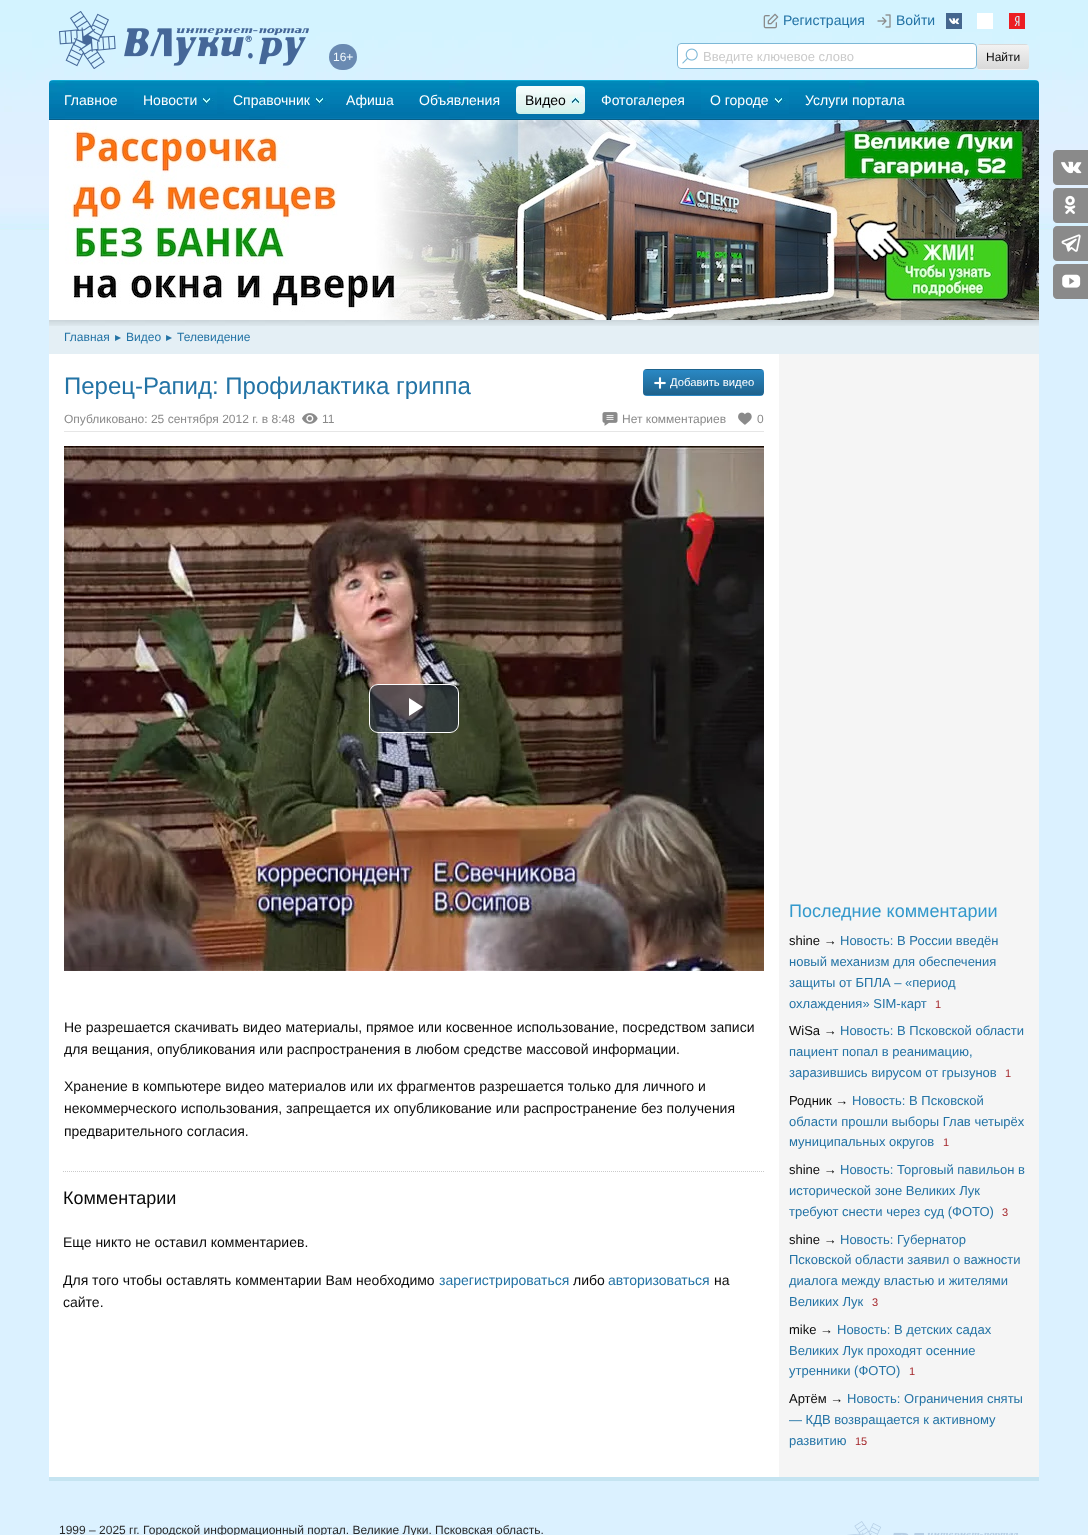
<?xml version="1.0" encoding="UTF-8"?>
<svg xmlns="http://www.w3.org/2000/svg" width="1088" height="1535">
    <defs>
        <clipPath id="clip1"><rect x="977" y="44" width="52" height="26" rx="4"/></clipPath>
        <linearGradient id="g1" gradientUnits="userSpaceOnUse" x1="1003" y1="21" x2="1003" y2="45"><stop offset="0" stop-color="#F2F2F2"/><stop offset="1" stop-color="#D9D9D9"/></linearGradient>
        <linearGradient id="g2" gradientUnits="userSpaceOnUse" x1="1003" y1="45" x2="1003" y2="69"><stop offset="0" stop-color="#F2F2F2"/><stop offset="1" stop-color="#D9D9D9"/></linearGradient>
        <linearGradient id="g3" gradientUnits="userSpaceOnUse" x1="1003" y1="69" x2="1003" y2="93"><stop offset="0" stop-color="#F2F2F2"/><stop offset="1" stop-color="#D9D9D9"/></linearGradient>
        <clipPath id="clip2"><rect x="643" y="369" width="121" height="27" rx="4"/></clipPath>
        <linearGradient id="g4" gradientUnits="userSpaceOnUse" x1="704" y1="345" x2="704" y2="370"><stop offset="0" stop-color="#2A88C4"/><stop offset="1" stop-color="#1E628C"/></linearGradient>
        <linearGradient id="g5" gradientUnits="userSpaceOnUse" x1="704" y1="370" x2="704" y2="395"><stop offset="0" stop-color="#2A88C4"/><stop offset="1" stop-color="#1E628C"/></linearGradient>
        <linearGradient id="g6" gradientUnits="userSpaceOnUse" x1="704" y1="395" x2="704" y2="420"><stop offset="0" stop-color="#2A88C4"/><stop offset="1" stop-color="#1E628C"/></linearGradient>
    </defs>
    <rect width="100%" height="100%" fill="#DBF1FF"/>
    <image x="0" y="0" width="1088" height="230" href="img_01.png"/>
    <image x="59" y="11" width="250" height="58" href="img_02.png"/>
    <image x="763" y="13" width="16" height="16" href="img_03.png"/>
    <text x="783" y="25" font-family="Liberation Sans" font-size="14" fill="#2373A5">Регистрация</text>
    <image x="877" y="14" width="14" height="14" href="img_04.png"/>
    <text x="896" y="25" font-family="Liberation Sans" font-size="14" fill="#2373A5">Войти</text>
    <rect x="948" y="18" width="12" height="7" fill="#FFFFFF"/>
    <image x="946" y="13" width="16" height="16" href="img_05.png"/>
    <rect x="977" y="13" width="16" height="16" fill="#FFFFFF"/>
    <image x="1009" y="13" width="16" height="16" href="img_06.png"/>
    <rect x="329" y="44" width="28" height="26" rx="13" fill="#456798" fill-opacity="0.75"/>
    <text x="333" y="61" font-family="Liberation Sans" font-size="12" fill="#F5FCFF">16+</text>
    <rect x="677" y="43" width="300" height="26" rx="4" fill="#FFFFFF"/>
    <image x="682" y="48" width="16" height="16" href="img_07.png"/>
    <rect x="677.5" y="43.5" width="299" height="25" rx="3.5" fill="none" stroke="#7DB8D7"/>
    <text x="703" y="61" font-family="Liberation Sans" font-size="13" fill="#CACACA">Введите ключевое слово</text>
    <g clip-path="url(#clip1)">
        <rect x="977" y="44" width="52" height="1" fill="url(#g1)"/>
        <rect x="977" y="45" width="52" height="24" fill="url(#g2)"/>
        <rect x="977" y="69" width="52" height="1" fill="url(#g3)"/>
    </g>
    <text x="986" y="61" font-family="Liberation Sans" font-size="12" fill="#0A0A0A">Найти</text>
    <image x="49" y="80" width="990" height="40" href="img_08.png"/>
    <text x="64" y="105" font-family="Liberation Sans" font-size="14" fill="#FFFFFF">Главное</text>
    <image x="134" y="86" width="83" height="28" href="img_09.png"/>
    <text x="143" y="105" font-family="Liberation Sans" font-size="14" fill="#FFFFFF">Новости</text>
    <image x="224" y="86" width="106" height="28" href="img_10.png"/>
    <text x="233" y="105" font-family="Liberation Sans" font-size="14" fill="#FFFFFF">Справочник</text>
    <text x="346" y="105" font-family="Liberation Sans" font-size="14" fill="#FFFFFF">Афиша</text>
    <text x="419" y="105" font-family="Liberation Sans" font-size="14" fill="#FFFFFF">Объявления</text>
    <image x="516" y="86" width="69" height="28" href="img_11.png"/>
    <text x="525" y="105" font-family="Liberation Sans" font-size="14" fill="#000000">Видео</text>
    <text x="601" y="105" font-family="Liberation Sans" font-size="14" fill="#FFFFFF">Фотогалерея</text>
    <image x="701" y="86" width="88" height="28" href="img_12.png"/>
    <text x="710" y="105" font-family="Liberation Sans" font-size="14" fill="#FFFFFF">О городе</text>
    <text x="805" y="105" font-family="Liberation Sans" font-size="14" fill="#FFFFFF">Услуги портала</text>
    <image x="49" y="120" width="990" height="200" href="img_13.png"/>
    <rect x="49" y="326" width="990" height="28" fill="#E4EFF5"/>
    <image x="49" y="320" width="990" height="6" href="img_14.png"/>
    <text x="64" y="341" font-family="Liberation Sans" font-size="12" fill="#2373A5">Главная</text>
    <text x="115" y="341" font-family="DejaVu Sans" font-size="12" fill="#2373A5">▸</text>
    <text x="126" y="341" font-family="Liberation Sans" font-size="12" fill="#2373A5">Видео</text>
    <text x="166" y="341" font-family="DejaVu Sans" font-size="12" fill="#2373A5">▸</text>
    <text x="177" y="341" font-family="Liberation Sans" font-size="12" fill="#2373A5">Телевидение</text>
    <rect x="49" y="354" width="730" height="1123" fill="#FFFFFF"/>
    <rect x="779" y="354" width="260" height="1123" fill="#F5F5F5"/>
    <text x="64" y="394" font-family="Liberation Sans" font-size="24" fill="#2373A5">Перец-Рапид: Профилактика гриппа</text>
    <g clip-path="url(#clip2)">
        <rect x="643" y="369" width="121" height="1" fill="url(#g4)"/>
        <rect x="643" y="370" width="121" height="25" fill="url(#g5)"/>
        <rect x="643" y="395" width="121" height="1" fill="url(#g6)"/>
    </g>
    <image x="654" y="377" width="12" height="12" href="img_15.png"/>
    <text x="670" y="386" font-family="Liberation Sans" font-size="11.25" fill="#FFFFFF">Добавить видео</text>
    <rect x="64" y="431" width="700" height="1" fill="#E6E6E6"/>
    <text x="64" y="423" font-family="Liberation Sans" font-size="12" fill="#8A8A8A">Опубликовано: 25 сентября 2012 г. в 8:48</text>
    <image x="302" y="413" width="16" height="11" href="img_16.png"/>
    <text x="322" y="423" font-family="Liberation Sans" font-size="12" fill="#8A8A8A">11</text>
    <image x="602" y="412" width="16" height="14" href="img_17.png"/>
    <text x="622" y="423" font-family="Liberation Sans" font-size="12" fill="#8A8A8A">Нет комментариев</text>
    <image x="738" y="412" width="14" height="13" href="img_18.png"/>
    <text x="757" y="423" font-family="Liberation Sans" font-size="12" fill="#8A8A8A">0</text>
    <image x="64" y="446" width="700" height="525" href="img_19.png"/>
    <rect x="369.5" y="684.5" width="89" height="48" rx="8.5" fill="#2B333F" fill-opacity="0.7" stroke="#FFFFFF"/>
    <path d="M 409 698 V 716 L 423 707 Z" fill="#FFFFFF"/>
    <text font-family="Liberation Sans" font-size="14" fill="#0A0A0A">
        <tspan x="64" y="1032">Не разрешается скачивать видео материалы, прямое или косвенное использование, посредством записи</tspan>
        <tspan x="64" y="1054">для вещания, опубликования или распространения в любом средстве массовой информации.</tspan>
    </text>
    <text font-family="Liberation Sans" font-size="14" fill="#0A0A0A">
        <tspan x="64" y="1091">Хранение в компьютере видео материалов или их фрагментов разрешается только для личного и</tspan>
        <tspan x="64" y="1113">некоммерческого использования, запрещается их опубликование или распространение без получения</tspan>
        <tspan x="64" y="1136">предварительного согласия.</tspan>
    </text>
    <path d="M 63 1171.5 H 765" fill="none" stroke="#CACACA" stroke-dasharray="1 1"/>
    <text x="63" y="1204" font-family="Liberation Sans" font-size="18" fill="#0A0A0A">Комментарии</text>
    <text x="63" y="1247" font-family="Liberation Sans" font-size="14" fill="#0A0A0A">Еще никто не оставил комментариев.</text>
    <text x="63" y="1285" font-family="Liberation Sans" font-size="14" fill="#0A0A0A">Для того чтобы оставлять комментарии Вам необходимо</text>
    <text x="439" y="1285" font-family="Liberation Sans" font-size="14" fill="#2373A5">зарегистрироваться</text>
    <text x="573" y="1285" font-family="Liberation Sans" font-size="14" fill="#0A0A0A">либо</text>
    <text x="608" y="1285" font-family="Liberation Sans" font-size="14" fill="#2373A5">авторизоваться</text>
    <text x="714" y="1285" font-family="Liberation Sans" font-size="14" fill="#0A0A0A">на</text>
    <text x="63" y="1307" font-family="Liberation Sans" font-size="14" fill="#0A0A0A">сайте.</text>
    <text x="789" y="917" font-family="Liberation Sans" font-size="18" fill="#3399CC">Последние комментарии</text>
    <text x="789" y="945" font-family="Liberation Sans" font-size="13" fill="#0A0A0A">shine →</text>
    <text x="840" y="945" font-family="Liberation Sans" font-size="13" fill="#2373A5">Новость: В России введён</text>
    <text font-family="Liberation Sans" font-size="13" fill="#2373A5">
        <tspan x="789" y="966">новый механизм для обеспечения</tspan>
        <tspan x="789" y="987">защиты от БПЛА – «период</tspan>
        <tspan x="789" y="1008">охлаждения» SIM-карт</tspan>
    </text>
    <text x="935" y="1008" font-family="Liberation Sans" font-size="11" fill="#A32428">1</text>
    <text x="789" y="1035" font-family="Liberation Sans" font-size="13" fill="#0A0A0A">WiSa →</text>
    <text x="840" y="1035" font-family="Liberation Sans" font-size="13" fill="#2373A5">Новость: В Псковской области</text>
    <text font-family="Liberation Sans" font-size="13" fill="#2373A5">
        <tspan x="789" y="1056">пациент попал в реанимацию,</tspan>
        <tspan x="789" y="1077">заразившись вирусом от грызунов</tspan>
    </text>
    <text x="1005" y="1077" font-family="Liberation Sans" font-size="11" fill="#A32428">1</text>
    <text x="789" y="1105" font-family="Liberation Sans" font-size="13" fill="#0A0A0A">Родник →</text>
    <text x="852" y="1105" font-family="Liberation Sans" font-size="13" fill="#2373A5">Новость: В Псковской</text>
    <text font-family="Liberation Sans" font-size="13" fill="#2373A5">
        <tspan x="789" y="1126">области прошли выборы Глав четырёх</tspan>
        <tspan x="789" y="1146">муниципальных округов</tspan>
    </text>
    <text x="943" y="1146" font-family="Liberation Sans" font-size="11" fill="#A32428">1</text>
    <text x="789" y="1174" font-family="Liberation Sans" font-size="13" fill="#0A0A0A">shine →</text>
    <text x="840" y="1174" font-family="Liberation Sans" font-size="13" fill="#2373A5">Новость: Торговый павильон в</text>
    <text font-family="Liberation Sans" font-size="13" fill="#2373A5">
        <tspan x="789" y="1195">исторической зоне Великих Лук</tspan>
        <tspan x="789" y="1216">требуют снести через суд (ФОТО)</tspan>
    </text>
    <text x="1002" y="1216" font-family="Liberation Sans" font-size="11" fill="#A32428">3</text>
    <text x="789" y="1244" font-family="Liberation Sans" font-size="13" fill="#0A0A0A">shine →</text>
    <text x="840" y="1244" font-family="Liberation Sans" font-size="13" fill="#2373A5">Новость: Губернатор</text>
    <text font-family="Liberation Sans" font-size="13" fill="#2373A5">
        <tspan x="789" y="1264">Псковской области заявил о важности</tspan>
        <tspan x="789" y="1285">диалога между властью и жителями</tspan>
        <tspan x="789" y="1306">Великих Лук</tspan>
    </text>
    <text x="872" y="1306" font-family="Liberation Sans" font-size="11" fill="#A32428">3</text>
    <text x="789" y="1334" font-family="Liberation Sans" font-size="13" fill="#0A0A0A">mike →</text>
    <text x="837" y="1334" font-family="Liberation Sans" font-size="13" fill="#2373A5">Новость: В детских садах</text>
    <text font-family="Liberation Sans" font-size="13" fill="#2373A5">
        <tspan x="789" y="1355">Великих Лук проходят осенние</tspan>
        <tspan x="789" y="1375">утренники (ФОТО)</tspan>
    </text>
    <text x="909" y="1375" font-family="Liberation Sans" font-size="11" fill="#A32428">1</text>
    <text x="789" y="1403" font-family="Liberation Sans" font-size="13" fill="#0A0A0A">Артём →</text>
    <text x="847" y="1403" font-family="Liberation Sans" font-size="13" fill="#2373A5">Новость: Ограничения сняты</text>
    <text font-family="Liberation Sans" font-size="13" fill="#2373A5">
        <tspan x="789" y="1424">— КДВ возвращается к активному</tspan>
        <tspan x="789" y="1445">развитию</tspan>
    </text>
    <text x="855" y="1445" font-family="Liberation Sans" font-size="11" fill="#A32428">15</text>
    <rect x="49" y="1477" width="990" height="4" fill="#C5E4F1"/>
    <text x="59" y="1534" font-family="Liberation Sans" font-size="12" fill="#2A2A2A">1999 – 2025 гг. Городской информационный портал. Великие Луки. Псковская область.</text>
    <image x="847" y="1521" width="171" height="14" href="img_20.png"/>
    <path d="M 1057 150 H 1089 V 185 H 1057 C 1055 185 1053 183 1053 181 V 154 C 1053 152 1055 150 1057 150 Z" fill="#8A8A8A"/>
    <image x="1061" y="161" width="21" height="13" href="img_21.png"/>
    <path d="M 1057 188 H 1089 V 223 H 1057 C 1055 223 1053 221 1053 219 V 192 C 1053 190 1055 188 1057 188 Z" fill="#8A8A8A"/>
    <image x="1064" y="195" width="12" height="19" href="img_22.png"/>
    <path d="M 1057 226 H 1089 V 261 H 1057 C 1055 261 1053 259 1053 257 V 230 C 1053 228 1055 226 1057 226 Z" fill="#8A8A8A"/>
    <image x="1061" y="234" width="20" height="18" href="img_23.png"/>
    <path d="M 1057 264 H 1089 V 299 H 1057 C 1055 299 1053 297 1053 295 V 268 C 1053 266 1055 264 1057 264 Z" fill="#8A8A8A"/>
    <image x="1062" y="274" width="19" height="14" href="img_24.png"/>
</svg>
